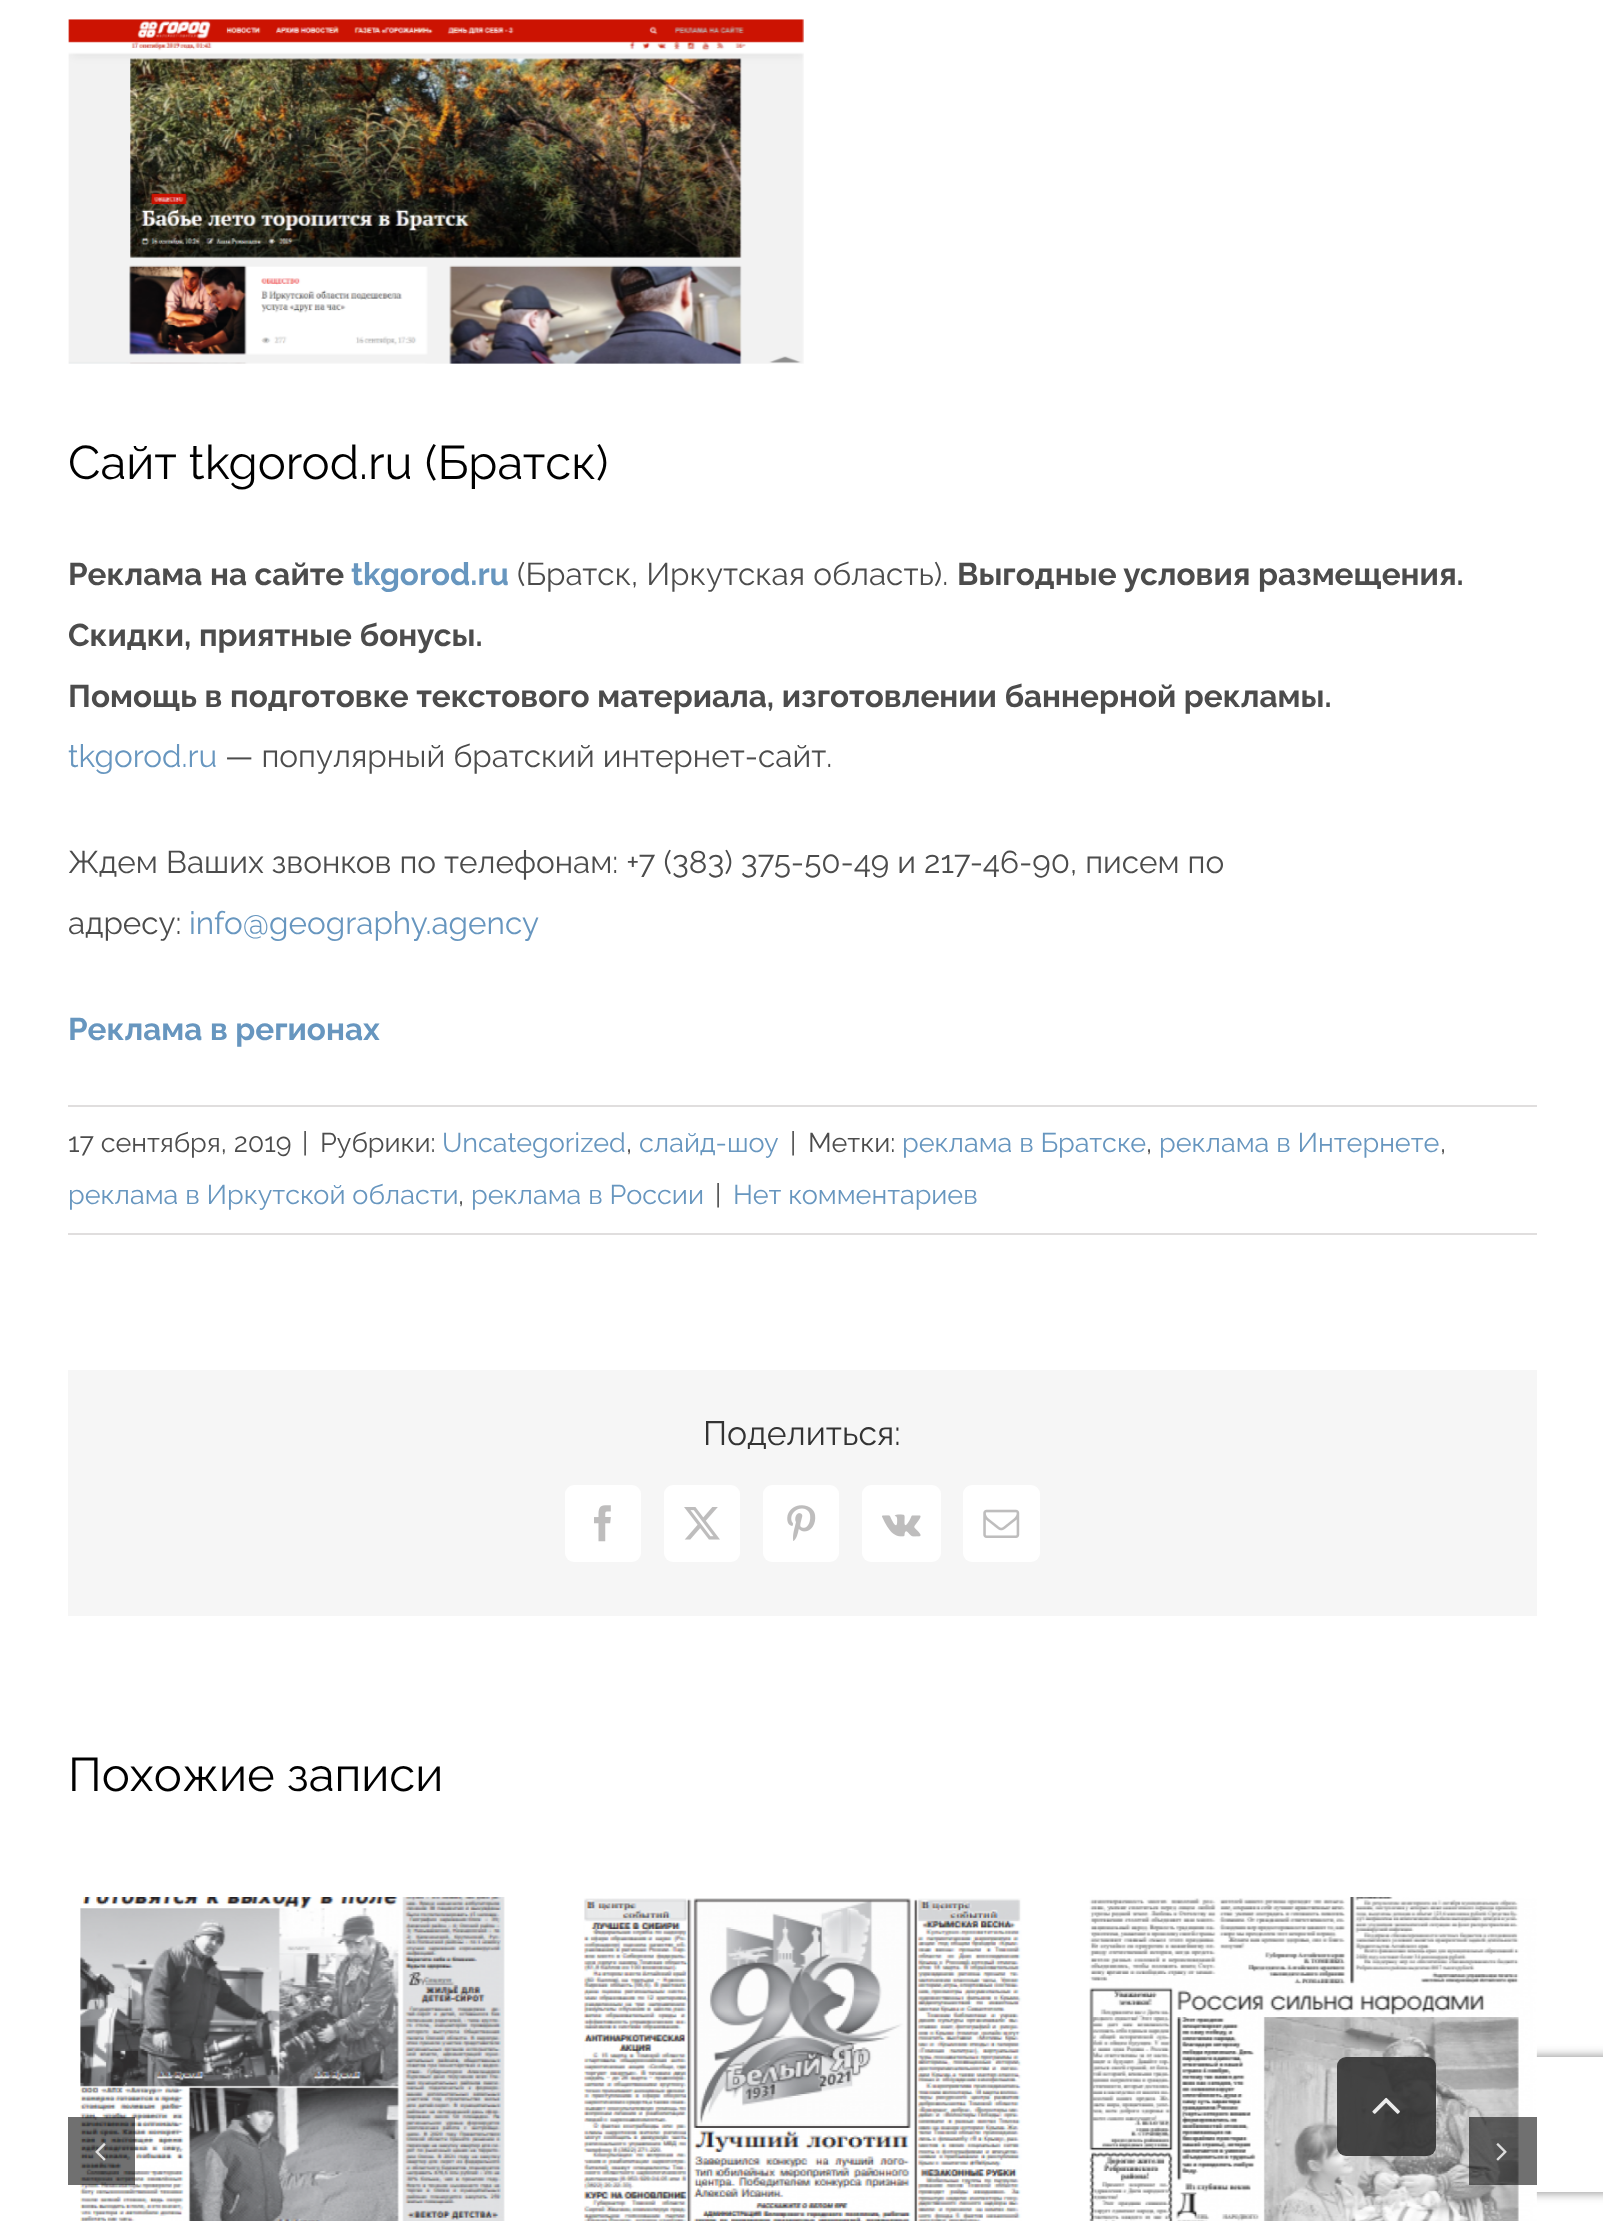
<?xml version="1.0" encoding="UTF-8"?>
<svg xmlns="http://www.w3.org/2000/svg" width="1603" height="2221">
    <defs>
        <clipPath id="clip1"><path d="M 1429 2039 H 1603 V 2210 H 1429 Z M 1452 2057 H 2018 C 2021 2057 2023 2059 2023 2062 V 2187 C 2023 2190 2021 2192 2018 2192 H 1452 C 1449 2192 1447 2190 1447 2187 V 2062 C 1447 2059 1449 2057 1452 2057 Z" clip-rule="evenodd"/></clipPath>
        <filter id="blur1" x="-50%" y="-200%" width="200%" height="500%"><feGaussianBlur stdDeviation="5.5"/></filter>
    </defs>
    <rect width="100%" height="100%" fill="#FFFFFF"/>
    <image x="68" y="19" width="736" height="345" href="img_01.png"/>
    <text x="68" y="479" font-family="Raleway" font-size="47.25" fill="#000000">Сайт tkgorod.ru (Братск)</text>
    <text x="68" y="585" font-family="Raleway" font-size="31.5" font-weight="700" fill="#4C4C4C">Реклама на сайте</text>
    <text x="351" y="585" font-family="Raleway" font-size="31.5" font-weight="700" fill="#6796BF">tkgorod.ru</text>
    <text x="517" y="585" font-family="Raleway" font-size="31.5" fill="#4C4C4C">(Братск, Иркутская область).</text>
    <text x="957" y="585" font-family="Raleway" font-size="31.5" font-weight="700" fill="#4C4C4C">Выгодные условия размещения.</text>
    <text font-family="Raleway" font-size="31.5" font-weight="700" fill="#4C4C4C">
        <tspan x="68" y="646">Скидки, приятные бонусы.</tspan>
        <tspan x="68" y="707">Помощь в подготовке текстового материала, изготовлении баннерной рекламы.</tspan>
    </text>
    <text x="68" y="767" font-family="Raleway" font-size="31.5" fill="#6796BF">tkgorod.ru</text>
    <text x="225" y="767" font-family="Raleway" font-size="31.5" fill="#4C4C4C">— популярный братский интернет-сайт.</text>
    <text font-family="Raleway" font-size="31.5" fill="#4C4C4C">
        <tspan x="68" y="873">Ждем Ваших звонков по телефонам: +7 (383) 375-50-49 и 217-46-90, писем по</tspan>
        <tspan x="68" y="934">адресу:</tspan>
    </text>
    <text x="189" y="934" font-family="Raleway" font-size="31.5" fill="#6796BF">info@geography.agency</text>
    <text x="68" y="1040" font-family="Raleway" font-size="31.5" font-weight="700" fill="#6796BF">Реклама в регионах</text>
    <rect x="68" y="1105" width="1469" height="2" fill="#E0DEDE"/>
    <rect x="68" y="1233" width="1469" height="2" fill="#E0DEDE"/>
    <text x="68" y="1152" font-family="Raleway" font-size="27" fill="#4C4C4C">17 сентября, 2019</text>
    <text x="302" y="1152" font-family="Raleway" font-size="27" fill="#4C4C4C">|</text>
    <text x="320" y="1152" font-family="Raleway" font-size="27" fill="#4C4C4C">Рубрики:</text>
    <text x="442" y="1152" font-family="Raleway" font-size="27" fill="#6796BF">Uncategorized</text>
    <text x="626" y="1152" font-family="Raleway" font-size="27" fill="#4C4C4C">,</text>
    <text x="639" y="1152" font-family="Raleway" font-size="27" fill="#6796BF">слайд-шоу</text>
    <text x="790" y="1152" font-family="Raleway" font-size="27" fill="#4C4C4C">|</text>
    <text x="808" y="1152" font-family="Raleway" font-size="27" fill="#4C4C4C">Метки:</text>
    <text x="902" y="1152" font-family="Raleway" font-size="27" fill="#6796BF">реклама в Братске</text>
    <text x="1146" y="1152" font-family="Raleway" font-size="27" fill="#4C4C4C">,</text>
    <text x="1159" y="1152" font-family="Raleway" font-size="27" fill="#6796BF">реклама в Интернете</text>
    <text x="1440" y="1152" font-family="Raleway" font-size="27" fill="#4C4C4C">,</text>
    <text x="68" y="1204" font-family="Raleway" font-size="27" fill="#6796BF">реклама в Иркутской области</text>
    <text x="458" y="1204" font-family="Raleway" font-size="27" fill="#4C4C4C">,</text>
    <text x="471" y="1204" font-family="Raleway" font-size="27" fill="#6796BF">реклама в России</text>
    <text x="715" y="1204" font-family="Raleway" font-size="27" fill="#4C4C4C">|</text>
    <text x="733" y="1204" font-family="Raleway" font-size="27" fill="#6796BF">Нет комментариев</text>
    <rect x="68" y="1370" width="1469" height="246" fill="#F6F6F6"/>
    <text x="703" y="1445" font-family="Raleway" font-size="33.75" fill="#333333">Поделиться:</text>
    <rect x="565" y="1485" width="76" height="77" rx="9" fill="#FFFFFF"/>
    <image x="594" y="1505" width="17" height="37" href="img_02.png"/>
    <rect x="664" y="1485" width="76" height="77" rx="9" fill="#FFFFFF"/>
    <image x="684" y="1507" width="36" height="33" href="img_03.png"/>
    <rect x="763" y="1485" width="76" height="77" rx="9" fill="#FFFFFF"/>
    <image x="787" y="1505" width="29" height="36" href="img_04.png"/>
    <rect x="862" y="1485" width="79" height="77" rx="9" fill="#FFFFFF"/>
    <image x="882" y="1514" width="39" height="23" href="img_05.png"/>
    <rect x="963" y="1485" width="77" height="77" rx="9" fill="#FFFFFF"/>
    <image x="983" y="1509" width="37" height="29" href="img_06.png"/>
    <text x="68" y="1791" font-family="Raleway" font-size="47.25" fill="#000000">Похожие записи</text>
    <image x="80" y="1897" width="425" height="324" href="img_07.png"/>
    <image x="583" y="1898" width="439" height="323" href="img_08.png"/>
    <g clip-path="url(#clip1)">
        <rect x="1447" y="2057" width="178" height="135" rx="5" fill="#808080" filter="url(#blur1)"/>
    </g>
    <image x="1089" y="1897" width="448" height="324" href="img_09.png"/>
    <rect x="68" y="2117" width="67" height="68" fill="#000000" fill-opacity="0.56"/>
    <image x="95" y="2143" width="11" height="18" href="img_10.png"/>
    <rect x="1469" y="2117" width="68" height="68" fill="#000000" fill-opacity="0.56"/>
    <image x="1496" y="2143" width="11" height="18" href="img_11.png"/>
    <rect x="1337" y="2057" width="99" height="99" rx="9" fill="#333333" fill-opacity="0.9"/>
    <image x="1372" y="2097" width="28" height="17" href="img_12.png"/>
</svg>
